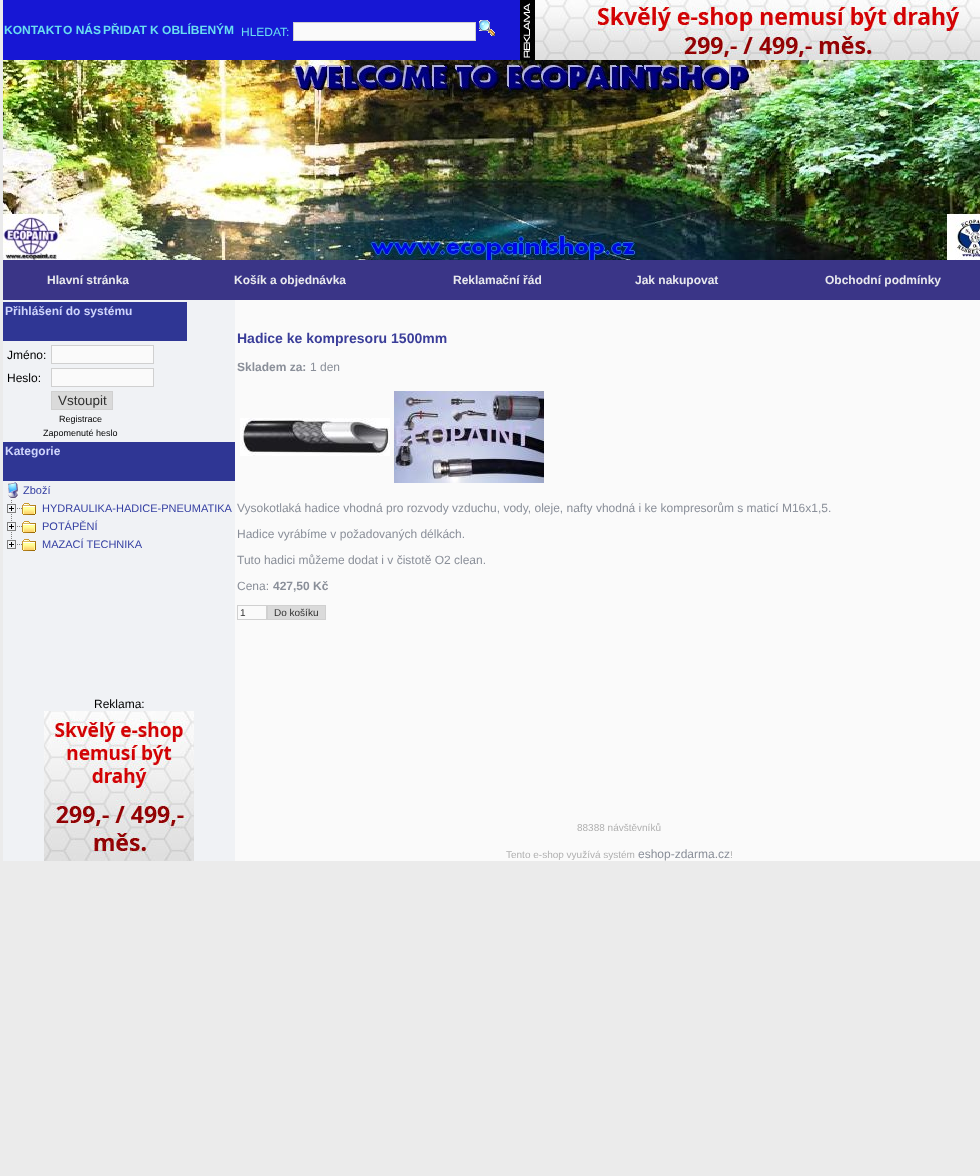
<?xml version="1.0" encoding="UTF-8"?>
<svg xmlns="http://www.w3.org/2000/svg" width="980" height="1176">
    <rect width="100%" height="100%" fill="#EBEBEB"/>
    <rect x="3" y="0" width="517" height="60" fill="#1717D4"/>
    <text x="4" y="34" font-family="Liberation Sans" font-size="12" font-weight="700" fill="#6ADEF0">KONTAKT</text>
    <text x="63" y="34" font-family="Liberation Sans" font-size="12" font-weight="700" fill="#6ADEF0">O NÁS</text>
    <text x="103" y="34" font-family="Liberation Sans" font-size="12" font-weight="700" fill="#6ADEF0">PŘIDAT K OBLÍBENÝM</text>
    <text x="241" y="36" font-family="Liberation Sans" font-size="12" fill="#6ADEF0">HLEDAT:</text>
    <rect x="293.5" y="22.5" width="182" height="18" fill="#FAFAFA" stroke="#D0D0D0"/>
    <image x="479" y="20" width="16" height="16" href="img_01.png"/>
    <image x="520" y="0" width="15" height="60" href="img_02.png"/>
    <image x="535" y="0" width="445" height="60" href="img_03.png"/>
    <image x="3" y="60" width="977" height="200" href="img_04.png"/>
    <rect x="3" y="260" width="977" height="40" fill="#3A3587"/>
    <text x="47" y="284" font-family="Liberation Sans" font-size="12" font-weight="700" fill="#E8E9ED">Hlavní stránka</text>
    <text x="234" y="284" font-family="Liberation Sans" font-size="12" font-weight="700" fill="#E8E9ED">Košík a objednávka</text>
    <text x="453" y="284" font-family="Liberation Sans" font-size="12" font-weight="700" fill="#E8E9ED">Reklamační řád</text>
    <text x="635" y="284" font-family="Liberation Sans" font-size="12" font-weight="700" fill="#E8E9ED">Jak nakupovat</text>
    <text x="825" y="284" font-family="Liberation Sans" font-size="12" font-weight="700" fill="#E8E9ED">Obchodní podmínky</text>
    <rect x="3" y="300" width="232" height="561" fill="#F0F2F5"/>
    <rect x="3" y="302" width="184" height="39" fill="#2F3694"/>
    <text x="5" y="315" font-family="Liberation Sans" font-size="12" font-weight="700" fill="#CFD5FC">Přihlášení do systému</text>
    <text x="7" y="359" font-family="Liberation Sans" font-size="12" fill="#000000">Jméno:</text>
    <rect x="51.5" y="345.5" width="102" height="18" fill="#FAFAFA" stroke="#D0D0D0"/>
    <text x="7" y="382" font-family="Liberation Sans" font-size="12" fill="#000000">Heslo:</text>
    <rect x="51.5" y="368.5" width="102" height="18" fill="#FAFAFA" stroke="#D0D0D0"/>
    <rect x="51.5" y="391.5" width="61" height="18" fill="#DADADA" stroke="#D0D0D0"/>
    <text x="58" y="405" font-family="Liberation Sans" font-size="13.5" fill="#303030">Vstoupit</text>
    <text x="59" y="422" font-family="Liberation Sans" font-size="9" fill="#000000">Registrace</text>
    <text x="43" y="436" font-family="Liberation Sans" font-size="9" fill="#000000">Zapomenuté heslo</text>
    <rect x="3" y="442" width="232" height="39" fill="#2F3694"/>
    <text x="5" y="455" font-family="Liberation Sans" font-size="12" font-weight="700" fill="#CFD5FC">Kategorie</text>
    <image x="8" y="482" width="10" height="16" href="img_05.png"/>
    <text x="23" y="494" font-family="Liberation Sans" font-size="11" fill="#323DA1">Zboží</text>
    <image x="7" y="500" width="15" height="17" href="img_06.png"/>
    <image x="22" y="503" width="14" height="12" href="img_07.png"/>
    <text x="42" y="512" font-family="Liberation Sans" font-size="11" fill="#323DA1">HYDRAULIKA-HADICE-PNEUMATIKA</text>
    <image x="7" y="518" width="15" height="17" href="img_06.png"/>
    <image x="22" y="521" width="14" height="12" href="img_07.png"/>
    <text x="42" y="530" font-family="Liberation Sans" font-size="11" fill="#323DA1">POTÁPĚNÍ</text>
    <image x="7" y="536" width="15" height="13" href="img_08.png"/>
    <image x="22" y="539" width="14" height="12" href="img_07.png"/>
    <text x="42" y="548" font-family="Liberation Sans" font-size="11" fill="#323DA1">MAZACÍ TECHNIKA</text>
    <text x="94" y="708" font-family="Liberation Sans" font-size="12" fill="#000000">Reklama:</text>
    <image x="44" y="711" width="150" height="150" href="img_09.png"/>
    <rect x="235" y="300" width="745" height="561" fill="#FAFAFA"/>
    <text x="237" y="343" font-family="Liberation Sans" font-size="14" font-weight="700" fill="#3A3D99">Hadice ke kompresoru 1500mm</text>
    <text x="237" y="371" font-family="Liberation Sans" font-size="12" font-weight="700" fill="#8A8F99">Skladem za:</text>
    <text x="310" y="371" font-family="Liberation Sans" font-size="12" fill="#8A8F99">1 den</text>
    <image x="240" y="418" width="150" height="38" href="img_10.png"/>
    <image x="394" y="391" width="150" height="92" href="img_11.png"/>
    <text x="237" y="512" font-family="Liberation Sans" font-size="12" fill="#8A8F99">Vysokotlaká hadice vhodná pro rozvody vzduchu, vody, oleje, nafty vhodná i ke kompresorům s maticí M16x1,5.</text>
    <text x="237" y="538" font-family="Liberation Sans" font-size="12" fill="#8A8F99">Hadice vyrábíme v požadovaných délkách.</text>
    <text x="237" y="564" font-family="Liberation Sans" font-size="12" fill="#8A8F99">Tuto hadici můžeme dodat i v čistotě O2 clean.</text>
    <text x="237" y="590" font-family="Liberation Sans" font-size="12" fill="#8A8F99">Cena:</text>
    <text x="273" y="590" font-family="Liberation Sans" font-size="12" font-weight="700" fill="#8A8F99">427,50 Kč</text>
    <rect x="237.5" y="605.5" width="29" height="14" fill="none" stroke="#D0D0D0"/>
    <text x="240" y="616" font-family="Liberation Sans" font-size="10" fill="#303030">1</text>
    <rect x="267.5" y="605.5" width="58" height="14" fill="#DADADA" stroke="#D0D0D0"/>
    <text x="274" y="616" font-family="Liberation Sans" font-size="10" fill="#303030">Do košíku</text>
    <text x="577" y="831" font-family="Liberation Sans" font-size="10" fill="#B0B0B0">88388 návštěvníků</text>
    <text x="506" y="858" font-family="Liberation Sans" font-size="10" fill="#B0B0B0">Tento e-shop využívá systém</text>
    <text x="638" y="858" font-family="Liberation Sans" font-size="12" fill="#8A8F99">eshop-zdarma.cz</text>
    <text x="730" y="858" font-family="Liberation Sans" font-size="10" fill="#B0B0B0">!</text>
</svg>
